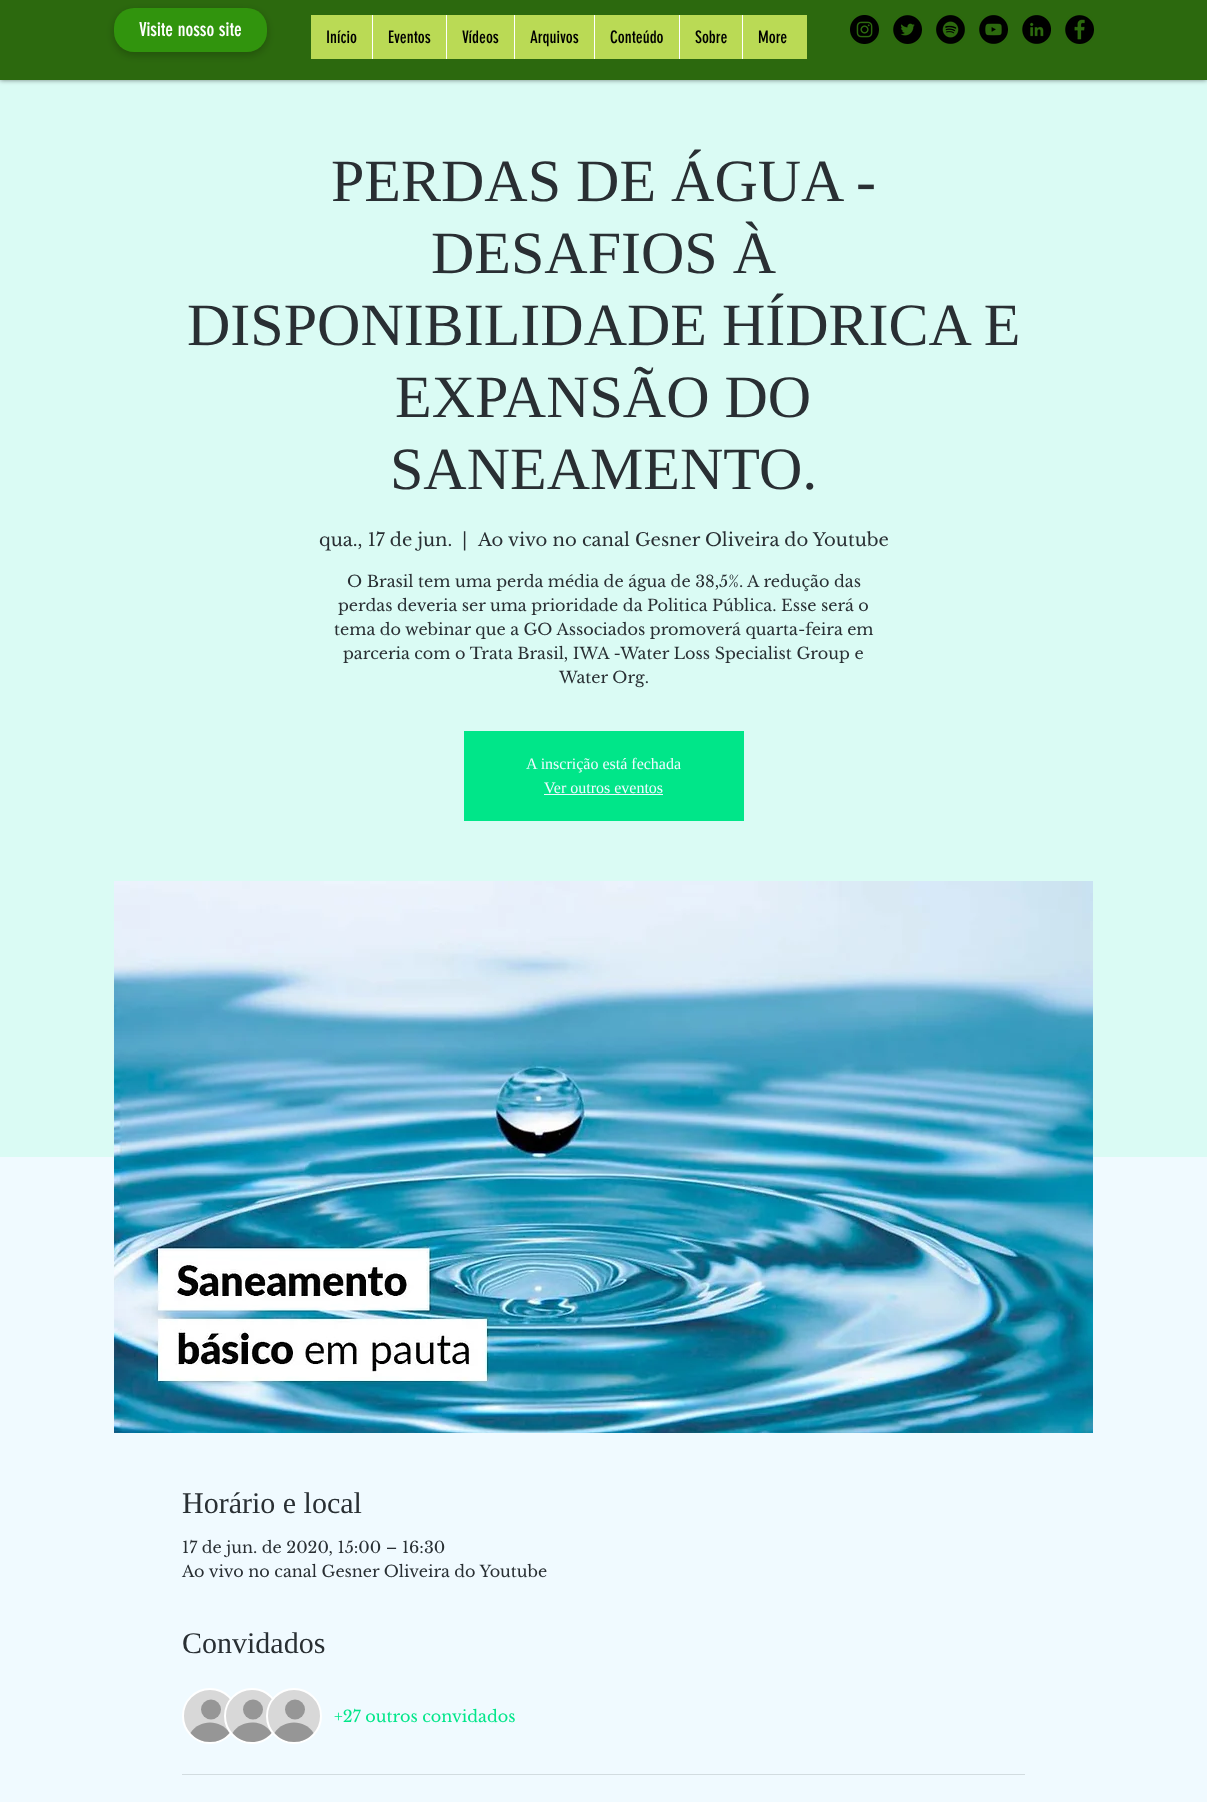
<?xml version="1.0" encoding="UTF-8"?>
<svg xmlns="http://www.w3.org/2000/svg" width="1207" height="1802">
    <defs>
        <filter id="blur1" x="-50%" y="-200%" width="200%" height="500%"><feGaussianBlur stdDeviation="2.5"/></filter>
        <filter id="blur2" x="-50%" y="-200%" width="200%" height="500%"><feGaussianBlur stdDeviation="4.5"/></filter>
    </defs>
    <rect width="100%" height="100%" fill="#F0FAFF"/>
    <rect x="0" y="80" width="1207" height="1077" fill="#DAFBF4"/>
    <rect x="0" y="0" width="1207" height="80" fill="#000000" fill-opacity="0.5" filter="url(#blur1)"/>
    <rect x="0" y="0" width="1207" height="80" fill="#2C690E"/>
    <rect x="114" y="11" width="153" height="44" rx="20" fill="#000000" fill-opacity="0.23" filter="url(#blur2)"/>
    <rect x="114" y="8" width="153" height="44" rx="20" fill="#31940D"/>
    <text x="139" y="36" font-family="'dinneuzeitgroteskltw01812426'" font-size="19" fill="#FFFFFF">Visite nosso site</text>
    <rect x="311" y="15" width="496" height="44" fill="#BADA55"/>
    <text x="326" y="43" font-family="'dinneuzeitgroteskltw01812426'" font-size="17" fill="#000000">Início</text>
    <rect x="372" y="15" width="1" height="44" fill="#FFFFFF"/>
    <text x="388" y="43" font-family="'dinneuzeitgroteskltw01812426'" font-size="17" fill="#000000">Eventos</text>
    <rect x="446" y="15" width="1" height="44" fill="#FFFFFF"/>
    <text x="462" y="43" font-family="'dinneuzeitgroteskltw01812426'" font-size="17" fill="#000000">Vídeos</text>
    <rect x="514" y="15" width="1" height="44" fill="#FFFFFF"/>
    <text x="530" y="43" font-family="'dinneuzeitgroteskltw01812426'" font-size="17" fill="#000000">Arquivos</text>
    <rect x="594" y="15" width="1" height="44" fill="#FFFFFF"/>
    <text x="610" y="43" font-family="'dinneuzeitgroteskltw01812426'" font-size="17" fill="#000000">Conteúdo</text>
    <rect x="679" y="15" width="1" height="44" fill="#FFFFFF"/>
    <text x="695" y="43" font-family="'dinneuzeitgroteskltw01812426'" font-size="17" fill="#000000">Sobre</text>
    <rect x="742" y="15" width="1" height="44" fill="#FFFFFF"/>
    <text x="758" y="43" font-family="'dinneuzeitgroteskltw01812426'" font-size="17" fill="#000000">More</text>
    <image x="850" y="15" width="29" height="29" href="img_01.png"/>
    <image x="893" y="15" width="29" height="29" href="img_02.png"/>
    <image x="936" y="15" width="29" height="29" href="img_03.png"/>
    <image x="979" y="15" width="29" height="29" href="img_04.png"/>
    <image x="1022" y="15" width="29" height="29" href="img_05.png"/>
    <image x="1065" y="15" width="29" height="29" href="img_06.png"/>
    <text x="331" y="201" font-family="Liberation Serif" font-size="60" fill="#292F33">PERDAS DE ÁGUA -</text>
    <text x="431" y="273" font-family="Liberation Serif" font-size="60" fill="#292F33">DESAFIOS À</text>
    <text x="187" y="345" font-family="Liberation Serif" font-size="60" fill="#292F33">DISPONIBILIDADE HÍDRICA E</text>
    <text x="395" y="417" font-family="Liberation Serif" font-size="60" fill="#292F33">EXPANSÃO DO</text>
    <text x="390" y="489" font-family="Liberation Serif" font-size="60" fill="#292F33">SANEAMENTO.</text>
    <text x="319" y="546" font-family="Libre Baskerville" font-size="18" fill="#292F33">qua., 17 de jun.</text>
    <text x="462" y="546" font-family="Libre Baskerville" font-size="18" fill="#292F33">|</text>
    <text x="478" y="546" font-family="Libre Baskerville" font-size="18" fill="#292F33">Ao vivo no canal Gesner Oliveira do Youtube</text>
    <text x="347" y="587" font-family="Libre Baskerville" font-size="16" fill="#292F33">O Brasil tem uma perda média de água de 38,5%. A redução das</text>
    <text x="338" y="611" font-family="Libre Baskerville" font-size="16" fill="#292F33">perdas deveria ser uma prioridade da Politica Pública. Esse será o</text>
    <text x="334" y="635" font-family="Libre Baskerville" font-size="16" fill="#292F33">tema do webinar que a GO Associados promoverá quarta-feira em</text>
    <text x="343" y="659" font-family="Libre Baskerville" font-size="16" fill="#292F33">parceria com o Trata Brasil, IWA -Water Loss Specialist Group e</text>
    <text x="559" y="683" font-family="Libre Baskerville" font-size="16" fill="#292F33">Water Org.</text>
    <rect x="464" y="731" width="280" height="90" fill="#00E689"/>
    <text x="526" y="769" font-family="Liberation Serif" font-size="16" fill="#F0FAFF">A inscrição está fechada</text>
    <text x="544" y="793" font-family="Liberation Serif" font-size="16" fill="#F0FAFF">Ver outros eventos</text>
    <rect x="544" y="794" width="119" height="1" fill="#F0FAFF"/>
    <image x="114" y="881" width="979" height="552" href="img_07.png"/>
    <text x="182" y="1513" font-family="Liberation Serif" font-size="30" fill="#292F33">Horário e local</text>
    <text font-family="Libre Baskerville" font-size="16" fill="#292F33">
        <tspan x="182" y="1553">17 de jun. de 2020, 15:00 – 16:30</tspan>
        <tspan x="182" y="1577">Ao vivo no canal Gesner Oliveira do Youtube</tspan>
    </text>
    <text x="182" y="1653" font-family="Liberation Serif" font-size="30" fill="#292F33">Convidados</text>
    <circle cx="210" cy="1716" r="27" fill="#D8D8D8" stroke="#FFFFFF" stroke-width="2"/>
    <circle cx="211" cy="1709.5" r="10" fill="#969696"/>
    <path d="M 229.5 1733 C 219.5 1745 200.5 1745 190.5 1733 C 199 1719 221 1719 229.5 1733 Z" fill="#969696"/>
    <circle cx="252" cy="1716" r="27" fill="#D8D8D8" stroke="#FFFFFF" stroke-width="2"/>
    <circle cx="253" cy="1709.5" r="10" fill="#969696"/>
    <path d="M 271.5 1733 C 261.5 1745 242.5 1745 232.5 1733 C 241 1719 263 1719 271.5 1733 Z" fill="#969696"/>
    <circle cx="294" cy="1716" r="27" fill="#D8D8D8" stroke="#FFFFFF" stroke-width="2"/>
    <circle cx="295" cy="1709.5" r="10" fill="#969696"/>
    <path d="M 313.5 1733 C 303.5 1745 284.5 1745 274.5 1733 C 283 1719 305 1719 313.5 1733 Z" fill="#969696"/>
    <text x="334" y="1722" font-family="Libre Baskerville" font-size="16" fill="#00E689">+27 outros convidados</text>
    <rect x="182" y="1774" width="843" height="1" fill="#D2DCE0"/>
</svg>
